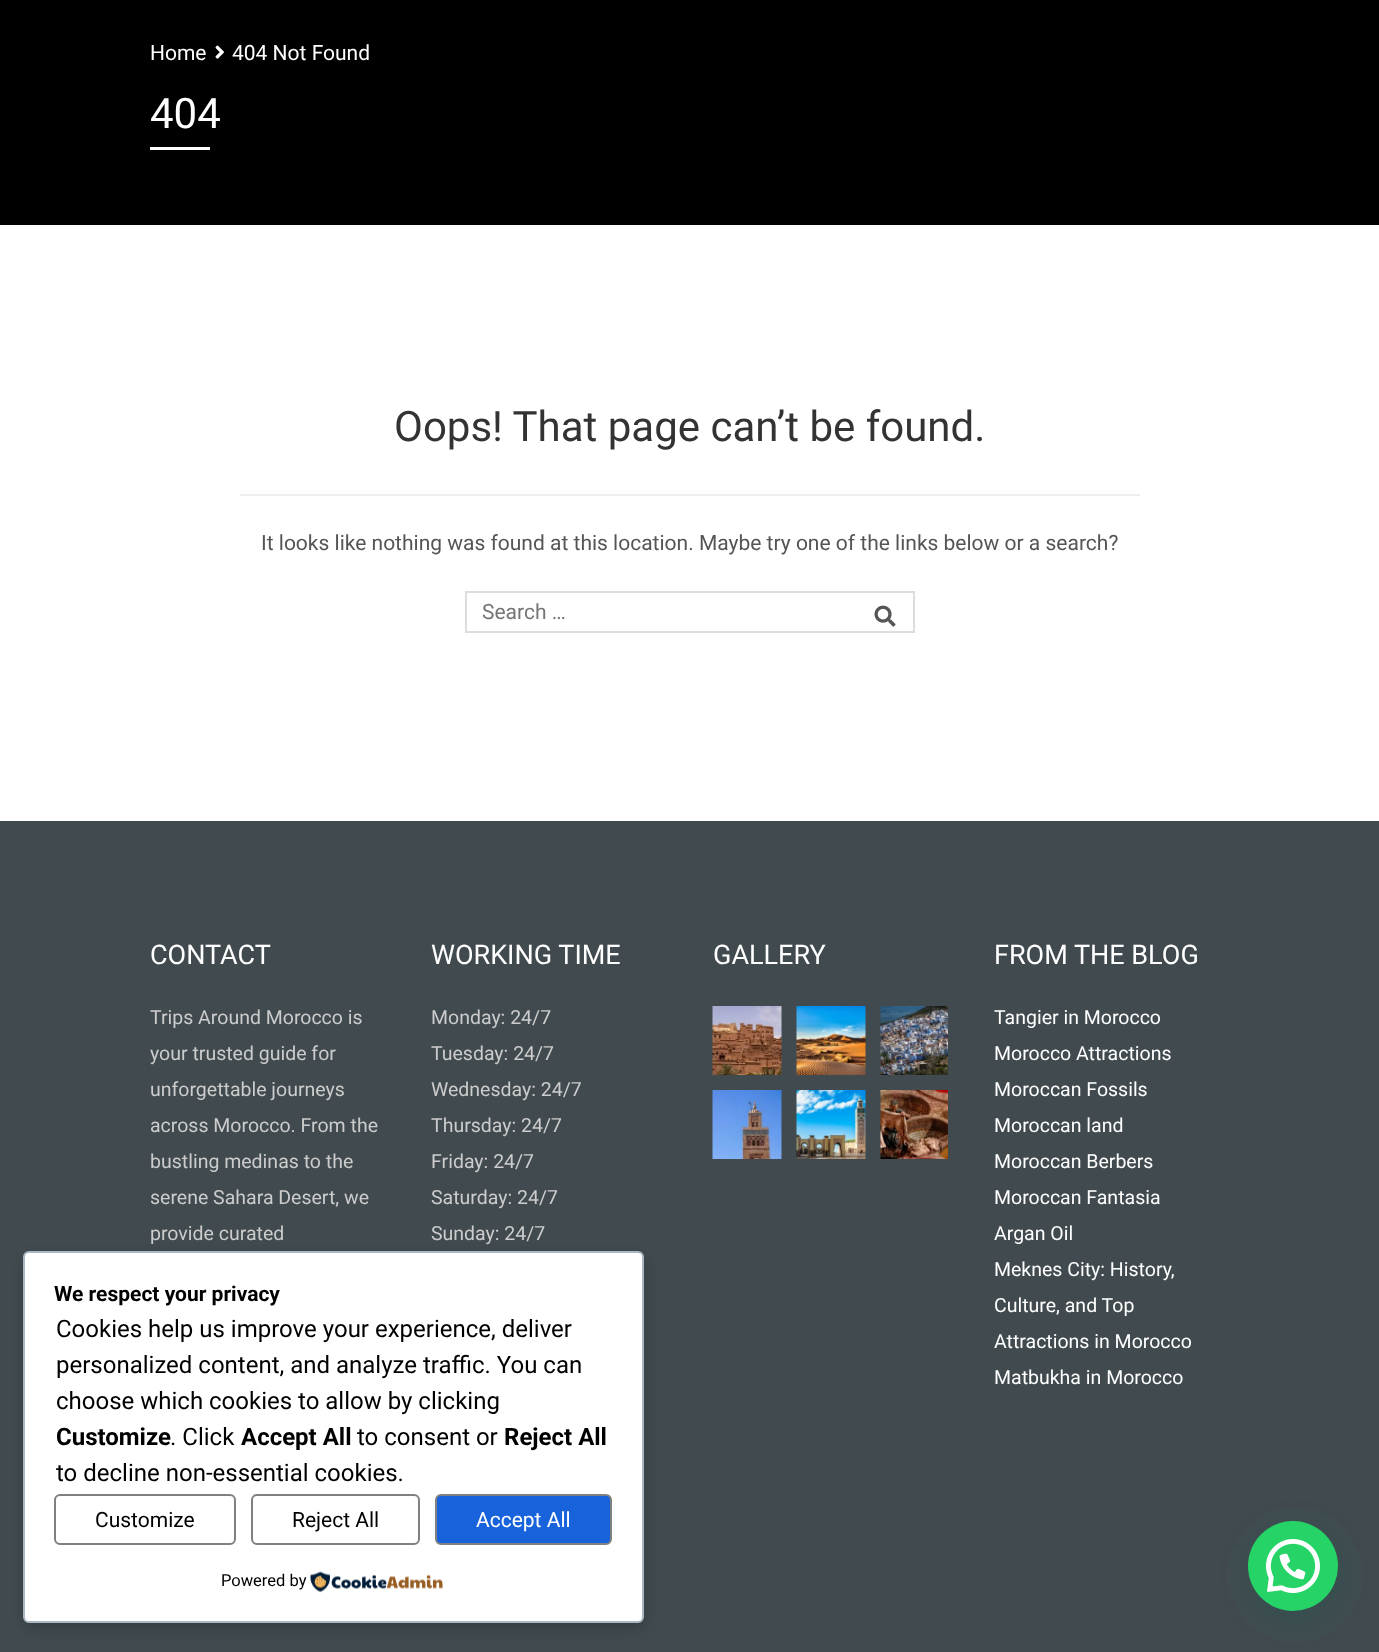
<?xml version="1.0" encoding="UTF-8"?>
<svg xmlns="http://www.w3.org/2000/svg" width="1379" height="1652">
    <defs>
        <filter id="blur1" x="-50%" y="-200%" width="200%" height="500%"><feGaussianBlur stdDeviation="7.5"/></filter>
        <filter id="blur2" x="-50%" y="-200%" width="200%" height="500%"><feGaussianBlur stdDeviation="18"/></filter>
    </defs>
    <rect width="100%" height="100%" fill="#FFFFFF"/>
    <rect x="0" y="0" width="1379" height="225" fill="#000000"/>
    <text x="150" y="60" font-family="Roboto" font-size="21" fill="#FFFFFF">Home</text>
    <image x="215" y="45" width="9" height="14" href="img_01.png"/>
    <text x="232" y="60" font-family="Roboto" font-size="21" fill="#FFFFFF">404 Not Found</text>
    <text x="150" y="128" font-family="Roboto" font-size="42" fill="#FFFFFF">404</text>
    <rect x="150" y="147" width="60" height="3" fill="#FFFFFF"/>
    <rect x="240" y="494" width="900" height="2" fill="#EEEEEE"/>
    <text x="394" y="441" font-family="Roboto" font-size="42" fill="#333333">Oops! That page can’t be found.</text>
    <text x="261" y="550" font-family="Roboto" font-size="21" fill="#555555">It looks like nothing was found at this location. Maybe try one of the links below or a search?</text>
    <rect x="466" y="592" width="448" height="40" fill="none" stroke="#DDDDDD" stroke-width="2"/>
    <text x="482" y="619" font-family="Roboto" font-size="21" fill="#757575">Search …</text>
    <image x="874" y="605" width="22" height="22" href="img_02.png"/>
    <rect x="0" y="821" width="1379" height="831" fill="#414B4F"/>
    <text x="150" y="964" font-family="Roboto" font-size="27" fill="#FFFFFF">CONTACT</text>
    <text font-family="Roboto" font-size="19.5" fill="#CCCCCC">
        <tspan x="150" y="1024">Trips Around Morocco is</tspan>
        <tspan x="150" y="1060">your trusted guide for</tspan>
        <tspan x="150" y="1096">unforgettable journeys</tspan>
        <tspan x="150" y="1132">across Morocco. From the</tspan>
        <tspan x="150" y="1168">bustling medinas to the</tspan>
        <tspan x="150" y="1204">serene Sahara Desert, we</tspan>
        <tspan x="150" y="1240">provide curated</tspan>
    </text>
    <text x="431" y="964" font-family="Roboto" font-size="27" fill="#FFFFFF">WORKING TIME</text>
    <text font-family="Roboto" font-size="19.5" fill="#CCCCCC">
        <tspan x="431" y="1024">Monday: 24/7</tspan>
        <tspan x="431" y="1060">Tuesday: 24/7</tspan>
        <tspan x="431" y="1096">Wednesday: 24/7</tspan>
        <tspan x="431" y="1132">Thursday: 24/7</tspan>
        <tspan x="431" y="1168">Friday: 24/7</tspan>
        <tspan x="431" y="1204">Saturday: 24/7</tspan>
        <tspan x="431" y="1240">Sunday: 24/7</tspan>
    </text>
    <text x="713" y="964" font-family="Roboto" font-size="27" fill="#FFFFFF">GALLERY</text>
    <image x="712" y="1006" width="70" height="69" href="img_03.png"/>
    <image x="796" y="1006" width="70" height="69" href="img_04.png"/>
    <image x="880" y="1006" width="68" height="69" href="img_05.png"/>
    <image x="712" y="1090" width="70" height="69" href="img_06.png"/>
    <image x="796" y="1090" width="70" height="69" href="img_07.png"/>
    <image x="880" y="1090" width="68" height="69" href="img_08.png"/>
    <text x="994" y="964" font-family="Roboto" font-size="27" fill="#FFFFFF">FROM THE BLOG</text>
    <text font-family="Roboto" font-size="19.5" fill="#FFFFFF">
        <tspan x="994" y="1024">Tangier in Morocco</tspan>
        <tspan x="994" y="1060">Morocco Attractions</tspan>
        <tspan x="994" y="1096">Moroccan Fossils</tspan>
        <tspan x="994" y="1132">Moroccan land</tspan>
        <tspan x="994" y="1168">Moroccan Berbers</tspan>
        <tspan x="994" y="1204">Moroccan Fantasia</tspan>
        <tspan x="994" y="1240">Argan Oil</tspan>
        <tspan x="994" y="1276">Meknes City: History,</tspan>
        <tspan x="994" y="1312">Culture, and Top</tspan>
        <tspan x="994" y="1348">Attractions in Morocco</tspan>
        <tspan x="994" y="1384">Matbukha in Morocco</tspan>
    </text>
    <rect x="24" y="1256" width="621" height="372" rx="6" fill="#000000" fill-opacity="0.2" filter="url(#blur1)"/>
    <rect x="24" y="1252" width="619" height="370" rx="5" fill="#FFFFFF" stroke="#ABB8C3" stroke-width="2"/>
    <text x="54" y="1301" font-family="Roboto" font-size="21" font-weight="700" fill="#000000">We respect your privacy</text>
    <text font-family="Roboto" font-size="24" fill="#000000">
        <tspan x="56" y="1337">Cookies help us improve your experience, deliver</tspan>
        <tspan x="56" y="1373">personalized content, and analyze traffic. You can</tspan>
        <tspan x="56" y="1409">choose which cookies to allow by clicking</tspan>
    </text>
    <text x="56" y="1445" font-family="Roboto" font-size="24" font-weight="700" fill="#000000">Customize</text>
    <text x="170" y="1445" font-family="Roboto" font-size="24" fill="#000000">. Click</text>
    <text x="241" y="1445" font-family="Roboto" font-size="24" font-weight="700" fill="#000000">Accept All</text>
    <text x="357" y="1445" font-family="Roboto" font-size="24" fill="#000000">to consent or</text>
    <text x="504" y="1445" font-family="Roboto" font-size="24" font-weight="700" fill="#000000">Reject All</text>
    <text x="56" y="1481" font-family="Roboto" font-size="24" fill="#000000">to decline non-essential cookies.</text>
    <rect x="55" y="1495" width="180" height="49" rx="5" fill="none" stroke="#808080" stroke-width="2"/>
    <text x="95" y="1527" font-family="Roboto" font-size="21" fill="#000000">Customize</text>
    <rect x="252" y="1495" width="167" height="49" rx="5" fill="none" stroke="#808080" stroke-width="2"/>
    <text x="292" y="1527" font-family="Roboto" font-size="21" fill="#000000">Reject All</text>
    <rect x="436" y="1495" width="175" height="49" rx="5" fill="#1863DC" stroke="#808080" stroke-width="2"/>
    <text x="476" y="1527" font-family="Roboto" font-size="21" fill="#FFFFFF">Accept All</text>
    <text x="221" y="1586" font-family="Roboto" font-size="16.5" fill="#000000">Powered by</text>
    <image x="310" y="1571" width="133" height="22" href="img_09.png"/>
    <rect x="1250" y="1530" width="90" height="90" rx="45" fill="#075E54" fill-opacity="0.24" filter="url(#blur2)"/>
    <circle cx="1293" cy="1566" r="45" fill="#25D366"/>
    <image x="1266" y="1539" width="54" height="54" href="img_10.png"/>
</svg>
